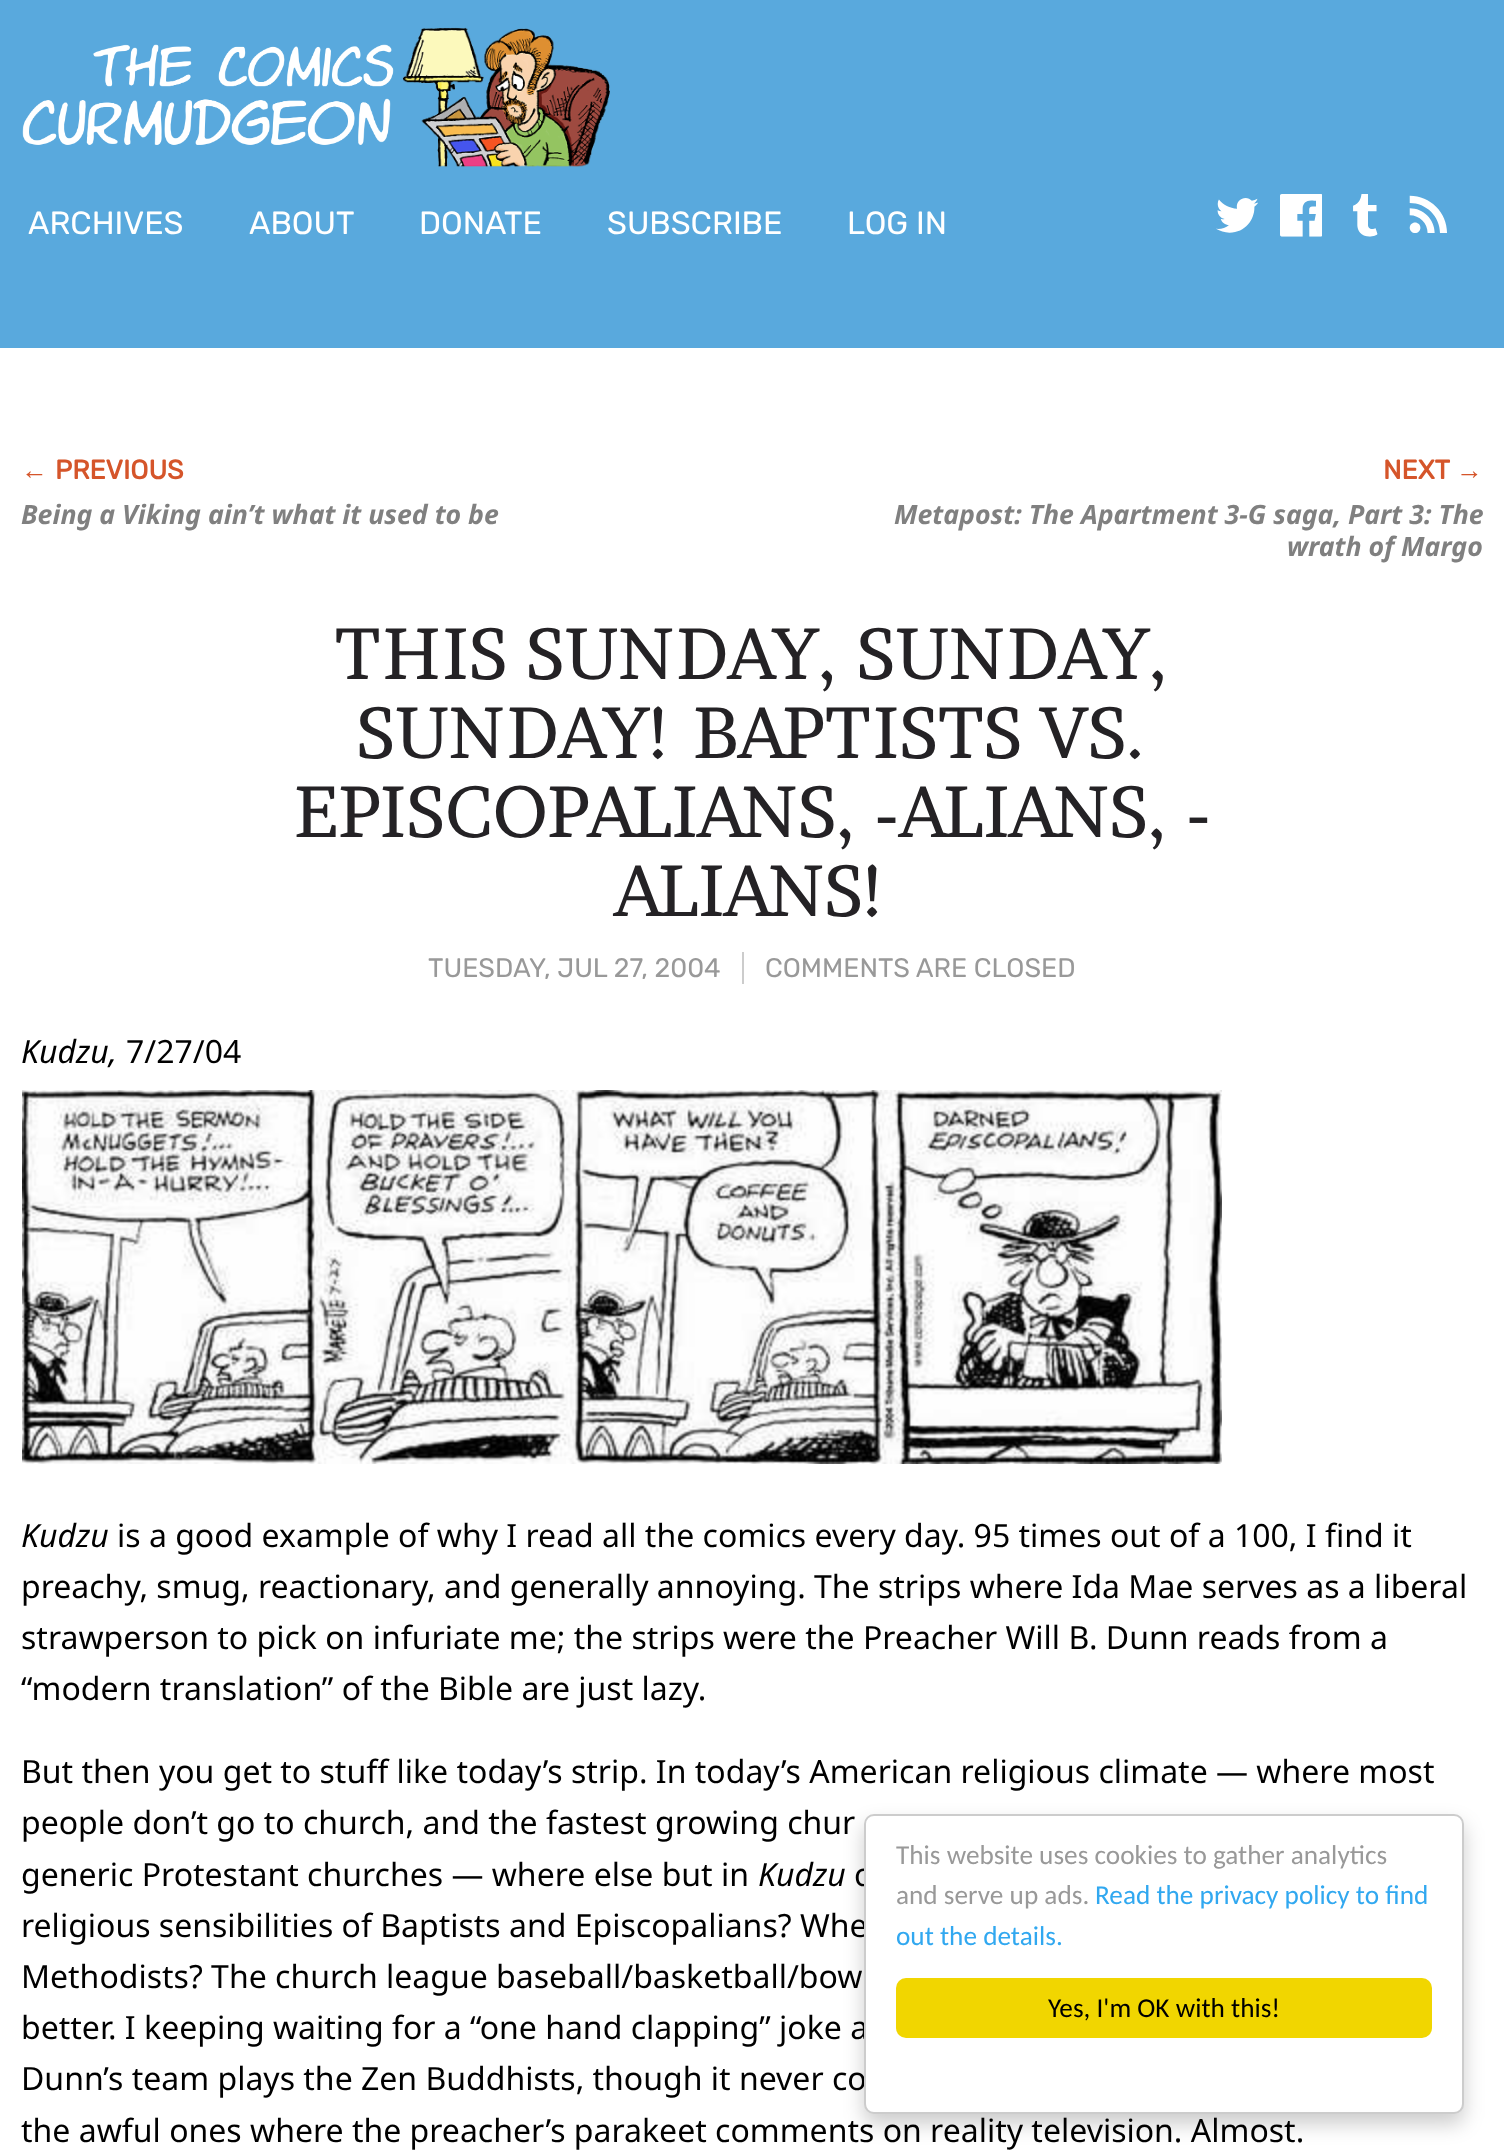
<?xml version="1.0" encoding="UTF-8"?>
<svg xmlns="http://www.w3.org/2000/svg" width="1504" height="2153">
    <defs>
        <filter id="blur1" x="-50%" y="-200%" width="200%" height="500%"><feGaussianBlur stdDeviation="10"/></filter>
    </defs>
    <rect width="100%" height="100%" fill="#FFFFFF"/>
    <rect x="0" y="0" width="1504" height="348" fill="#59A9DD"/>
    <image x="22" y="44" width="372" height="101" href="img_01.png"/>
    <image x="402" y="27" width="208" height="140" href="img_02.png"/>
    <text x="28" y="234" font-family="Rubik" font-size="32" font-weight="300" fill="#FFFFFF">ARCHIVES</text>
    <text x="249" y="234" font-family="Rubik" font-size="32" font-weight="300" fill="#FFFFFF">ABOUT</text>
    <text x="419" y="234" font-family="Rubik" font-size="32" font-weight="300" fill="#FFFFFF">DONATE</text>
    <text x="607" y="234" font-family="Rubik" font-size="32" font-weight="300" fill="#FFFFFF">SUBSCRIBE</text>
    <text x="847" y="234" font-family="Rubik" font-size="32" font-weight="300" fill="#FFFFFF">LOG IN</text>
    <image x="1216" y="198" width="42" height="35" href="img_03.png"/>
    <image x="1280" y="194" width="42" height="43" href="img_04.png"/>
    <image x="1353" y="194" width="25" height="43" href="img_05.png"/>
    <image x="1409" y="195" width="38" height="38" href="img_06.png"/>
    <text x="21" y="479" font-family="Liberation Sans" font-size="26.7" font-weight="700" fill="#D5552A">←</text>
    <text x="55" y="479" font-family="Rubik" font-size="26.7" font-weight="700" fill="#D5552A">PREVIOUS</text>
    <text x="21" y="524" font-family="Noto Sans" font-size="26.7" font-weight="700" font-style="italic" fill="#808080">Being a Viking ain’t what it used to be</text>
    <text x="1383" y="479" font-family="Rubik" font-size="26.7" font-weight="700" fill="#D5552A">NEXT</text>
    <text x="1456" y="479" font-family="Liberation Sans" font-size="26.7" font-weight="700" fill="#D5552A">→</text>
    <text x="894" y="524" font-family="Noto Sans" font-size="26.7" font-weight="700" font-style="italic" fill="#808080">Metapost: The Apartment 3-G saga, Part 3: The</text>
    <text x="1287" y="556" font-family="Noto Sans" font-size="26.7" font-weight="700" font-style="italic" fill="#808080">wrath of Margo</text>
    <text x="335" y="679" font-family="Brawler" font-size="72" fill="#242225">THIS SUNDAY, SUNDAY,</text>
    <text x="356" y="758" font-family="Brawler" font-size="72" fill="#242225">SUNDAY! BAPTISTS VS.</text>
    <text x="294" y="837" font-family="Brawler" font-size="72" fill="#242225">EPISCOPALIANS, -ALIANS, -</text>
    <text x="614" y="916" font-family="Brawler" font-size="72" fill="#242225">ALIANS!</text>
    <text x="428" y="977" font-family="Rubik" font-size="26.7" font-weight="300" fill="#999999">TUESDAY, JUL 27, 2004</text>
    <rect x="742" y="952" width="2" height="32" fill="#CCCCCC"/>
    <text x="765" y="977" font-family="Rubik" font-size="26.7" font-weight="300" fill="#999999">COMMENTS ARE CLOSED</text>
    <text x="21" y="1063" font-family="Noto Sans" font-size="32" font-style="italic" fill="#000000">Kudzu,</text>
    <text x="126" y="1063" font-family="Noto Sans" font-size="32" fill="#000000">7/27/04</text>
    <image x="22" y="1090" width="1200" height="374" href="img_07.png"/>
    <text x="21" y="1547" font-family="Noto Sans" font-size="32" font-style="italic" fill="#000000">Kudzu</text>
    <text x="117" y="1547" font-family="Noto Sans" font-size="32" fill="#000000">is a good example of why I read all the comics every day. 95 times out of a 100, I find it</text>
    <text font-family="Noto Sans" font-size="32" fill="#000000">
        <tspan x="21" y="1598">preachy, smug, reactionary, and generally annoying. The strips where Ida Mae serves as a liberal</tspan>
        <tspan x="21" y="1649">strawperson to pick on infuriate me; the strips were the Preacher Will B. Dunn reads from a</tspan>
        <tspan x="21" y="1700">“modern translation” of the Bible are just lazy.</tspan>
    </text>
    <text font-family="Noto Sans" font-size="32" fill="#000000">
        <tspan x="21" y="1783">But then you get to stuff like today’s strip. In today’s American religious climate — where most</tspan>
        <tspan x="21" y="1834">people don’t go to church, and the fastest growing chur</tspan>
        <tspan x="21" y="1886">generic Protestant churches — where else but in</tspan>
    </text>
    <text x="758" y="1886" font-family="Noto Sans" font-size="32" font-style="italic" fill="#000000">Kudzu</text>
    <text x="854" y="1886" font-family="Noto Sans" font-size="32" fill="#000000">c</text>
    <text font-family="Noto Sans" font-size="32" fill="#000000">
        <tspan x="21" y="1937">religious sensibilities of Baptists and Episcopalians? Whe</tspan>
        <tspan x="21" y="1988">Methodists? The church league baseball/basketball/bow</tspan>
        <tspan x="21" y="2039">better. I keeping waiting for a “one hand clapping” joke a</tspan>
        <tspan x="21" y="2090">Dunn’s team plays the Zen Buddhists, though it never co</tspan>
        <tspan x="21" y="2142">the awful ones where the preacher’s parakeet comments on reality television. Almost.</tspan>
    </text>
    <rect x="864" y="1824" width="600" height="300" rx="10" fill="#000000" fill-opacity="0.2" filter="url(#blur1)"/>
    <rect x="865" y="1815" width="598" height="298" rx="9" fill="#FFFFFF" stroke="#CCCCCC" stroke-width="2"/>
    <text font-family="Carlito" font-size="27.25" fill="#999999">
        <tspan x="896" y="1864">This website uses cookies to gather analytics</tspan>
        <tspan x="896" y="1904">and serve up ads.</tspan>
    </text>
    <text x="1095" y="1904" font-family="Carlito" font-size="27.25" fill="#31A8F0">Read the privacy policy to find</text>
    <text x="896" y="1945" font-family="Carlito" font-size="27.25" fill="#31A8F0">out the details.</text>
    <rect x="896" y="1978" width="536" height="60" rx="10" fill="#F1D600"/>
    <text x="1048" y="2017" font-family="Carlito" font-size="27.25" fill="#000000">Yes, I'm OK with this!</text>
</svg>
